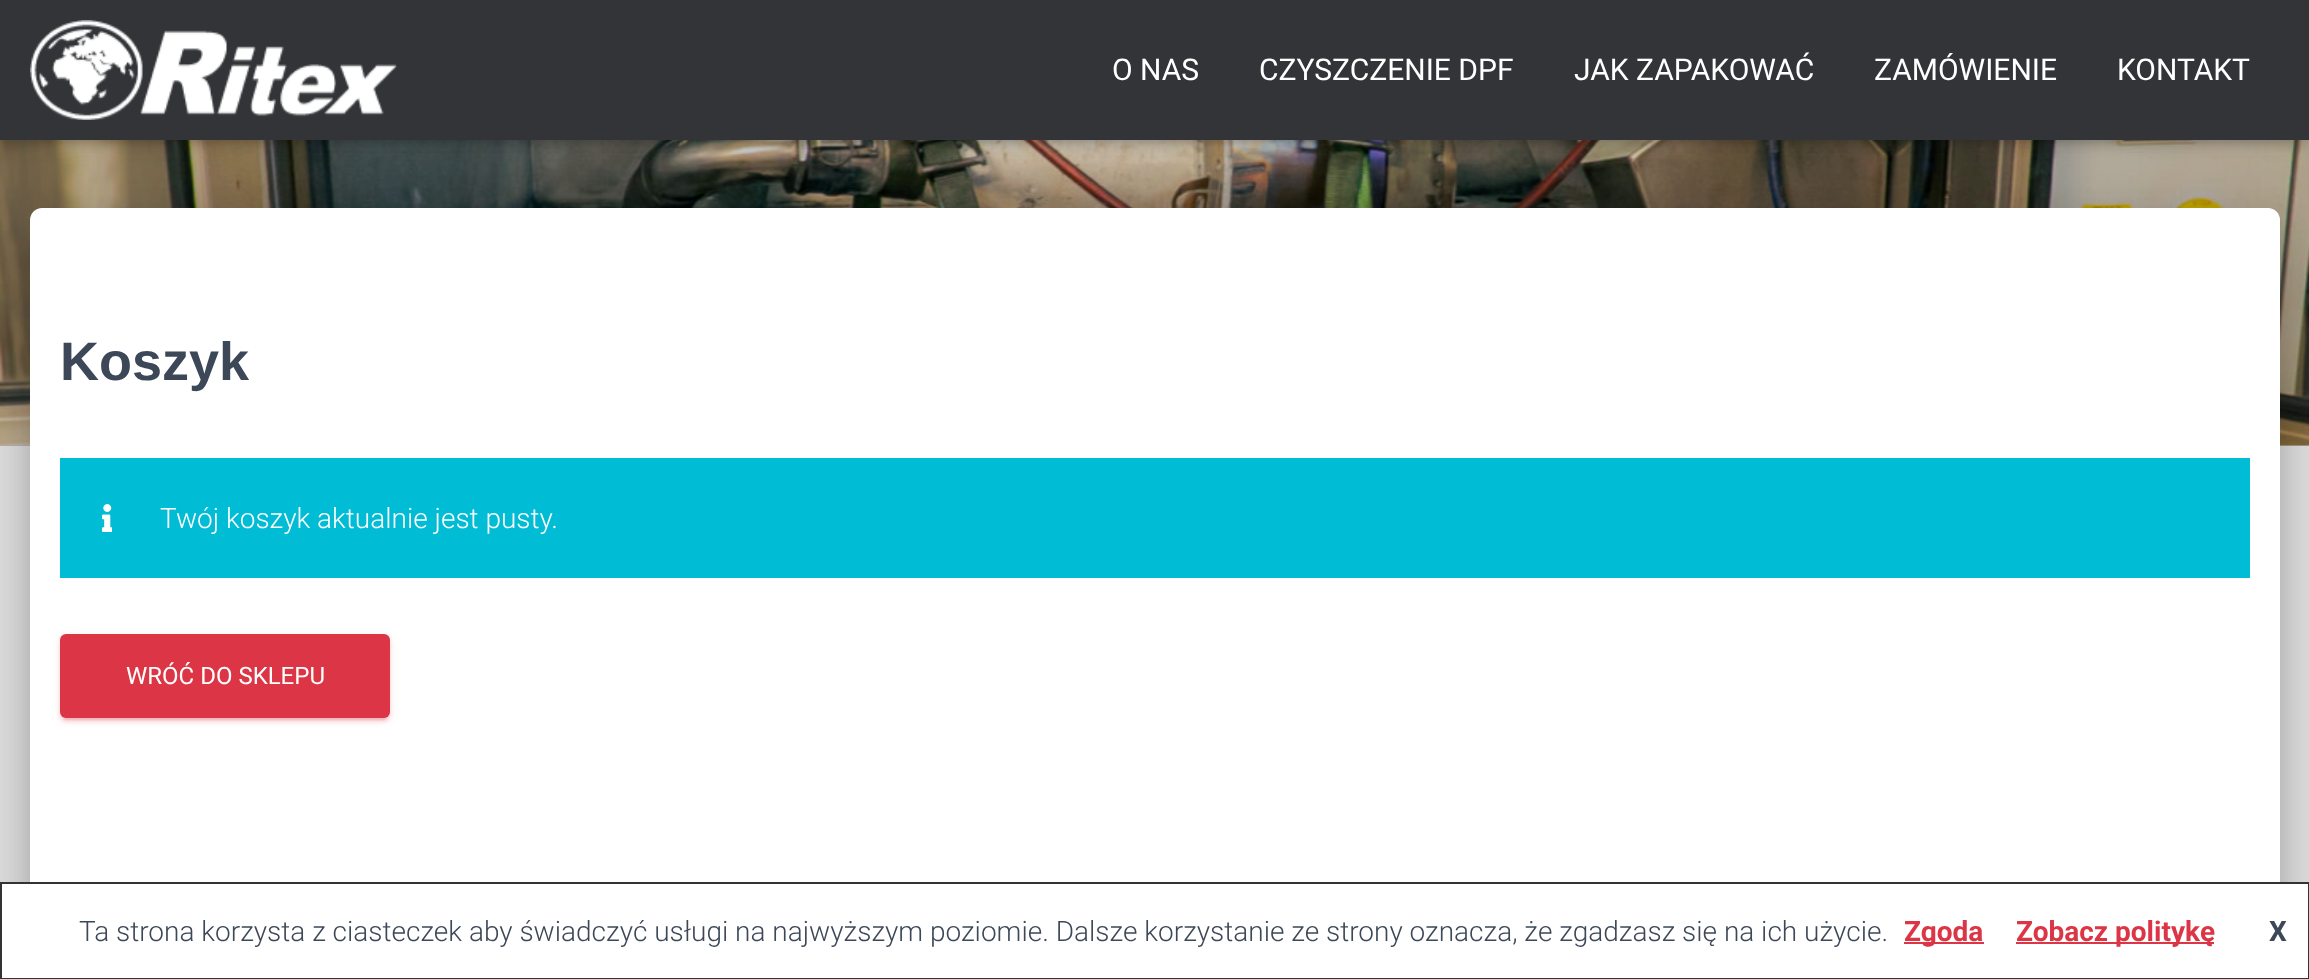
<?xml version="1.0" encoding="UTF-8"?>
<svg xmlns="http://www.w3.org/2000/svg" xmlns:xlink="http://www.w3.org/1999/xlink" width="2309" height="979">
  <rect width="100%" height="100%" fill="#e5e5e5" />
  <rect y="445" width="2309" height="1" fill="#b7b7b7" />
  <image x="0" y="140" width="2309" height="306" xlink:href="image2.png" />
  <rect x="4" y="12" width="2302" height="132" fill="#000000" fill-opacity="0.1" filter="blur(5px)" />
  <rect y="2" width="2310" height="140" fill="#000000" fill-opacity="0.12" filter="blur(10px)" />
  <rect x="12" y="14" width="2286" height="116" fill="#000000" fill-opacity="0.42" filter="blur(10px)" />
  <rect x="20" y="210" width="2270" height="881" rx="22" fill="#000000" fill-opacity="0.12" filter="blur(30px)" />
  <rect width="2309" height="140" fill="#323437" />
  <image x="30" y="20" width="367" height="100" xlink:href="image1.png" />
  <rect x="40" y="234" width="2230" height="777" rx="2" fill="#000000" fill-opacity="0.2" filter="blur(10px)" />
  <rect x="26" y="236" width="2258" height="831" rx="16" fill="#000000" fill-opacity="0.14" filter="blur(24px)" />
  <path d="M 42 208 h 2226 c 6.5 0 12 5.5 12 12 v 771 h -2250 v -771 c 0 -6.5 5.5 -12 12 -12 z" fill="#ffffff" />
  <rect x="60" y="458" width="2190" height="120" fill="#00bcd4" />
  <image x="102" y="504" width="10" height="28" xlink:href="image3.png" />
  <rect x="60" y="636" width="330" height="84" rx="6" fill="#dc3545" fill-opacity="0.12" filter="blur(5px)" />
  <rect x="64" y="644" width="322" height="76" rx="2" fill="#dc3545" fill-opacity="0.2" filter="blur(1px)" />
  <rect x="60" y="638" width="330" height="84" rx="6" fill="#dc3545" fill-opacity="0.14" filter="blur(2px)" />
  <rect x="60" y="634" width="330" height="84" rx="6" fill="#dc3545" />
  <rect x="1" y="883" width="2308" height="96" fill="#ffffff" stroke="#333333" stroke-width="2" />
  <rect x="1904" y="942" width="80" height="2" fill="#dc3545" />
  <rect x="2016" y="942" width="198" height="2" fill="#dc3545" />
  <text x="1112" y="80" style="font-family: Roboto; font-size: 30px; fill: #ffffff">O NAS</text>
  <text x="1259" y="80" style="font-family: Roboto; font-size: 30px; fill: #ffffff">CZYSZCZENIE DPF</text>
  <text x="1574" y="80" style="font-family: Roboto; font-size: 30px; fill: #ffffff">JAK ZAPAKOWAĆ</text>
  <text x="1874" y="80" style="font-family: Roboto; font-size: 30px; fill: #ffffff">ZAMÓWIENIE</text>
  <text x="2117" y="80" style="font-family: Roboto; font-size: 30px; fill: #ffffff">KONTAKT</text>
  <text x="60" y="380" style="font-family: Liberation Sans; font-size: 54px; font-weight: bold; fill: #3c4858">Koszyk</text>
  <text x="160" y="528" style="font-family: Roboto; font-size: 28px; font-weight: 300; fill: #ffffff">Twój koszyk aktualnie jest pusty.</text>
  <text x="126" y="684" style="font-family: Roboto; font-size: 24px; fill: #ffffff">WRÓĆ DO SKLEPU</text>
  <text x="79" y="941" style="font-family: Roboto; font-size: 28px; font-weight: 300; fill: #3c4858">Ta strona korzysta z ciasteczek aby świadczyć usługi na najwyższym poziomie. Dalsze korzystanie ze strony oznacza, że zgadzasz się na ich użycie.</text>
  <text x="1904" y="941" style="font-family: Roboto; font-size: 28px; font-weight: bold; fill: #dc3545">Zgoda</text>
  <text x="2016" y="941" style="font-family: Roboto; font-size: 28px; font-weight: bold; fill: #dc3545">Zobacz politykę</text>
  <text x="2269" y="941" style="font-family: Roboto; font-size: 28px; font-weight: bold; fill: #3c4858">X</text>
</svg>
